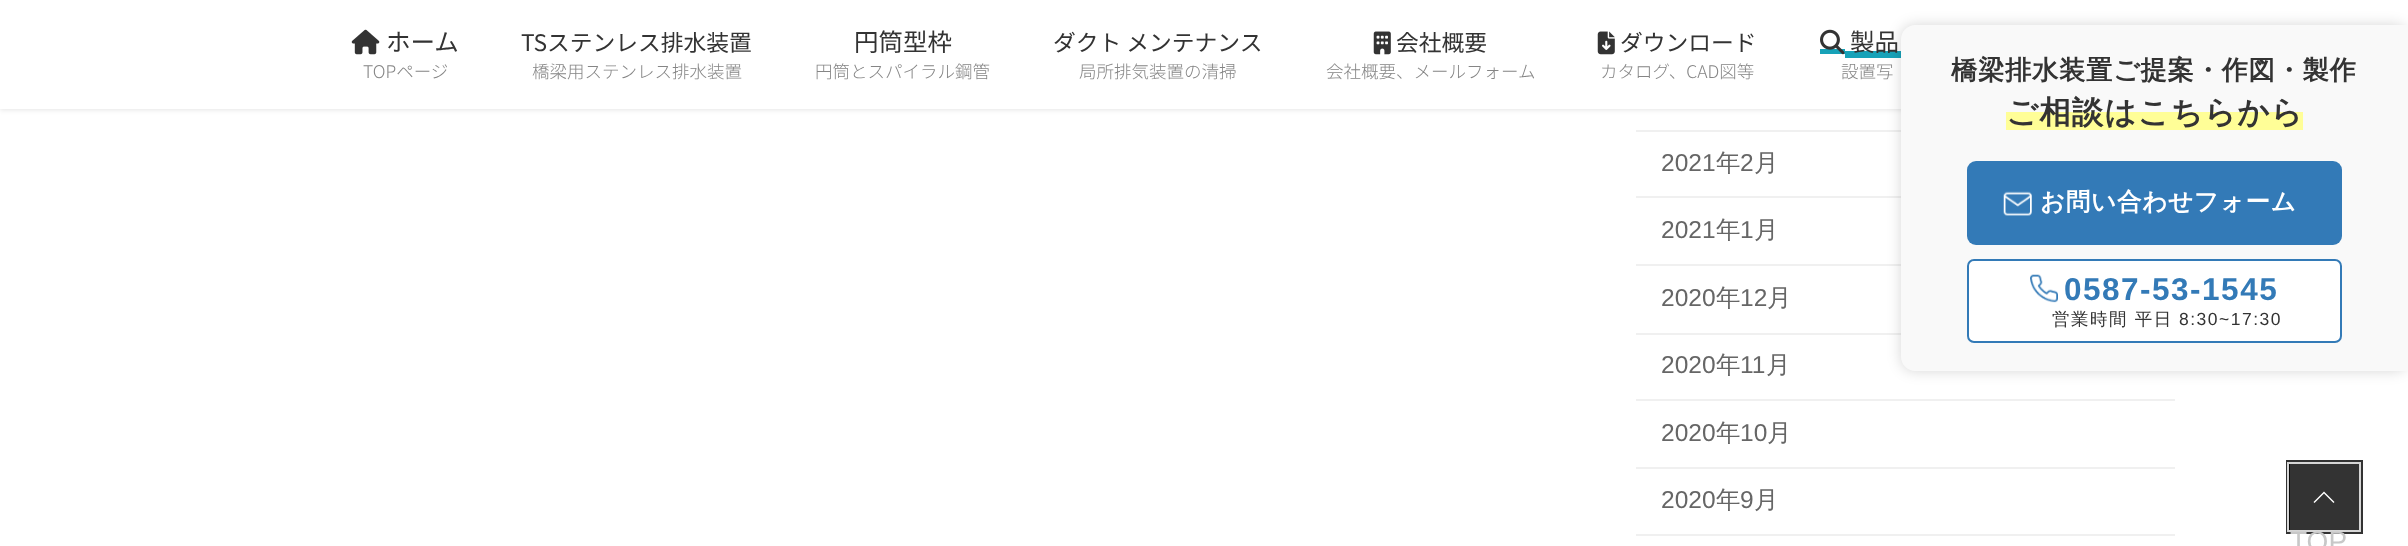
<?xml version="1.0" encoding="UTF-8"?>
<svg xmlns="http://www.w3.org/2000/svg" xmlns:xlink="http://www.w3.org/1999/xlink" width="2408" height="546">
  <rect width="100%" height="100%" fill="#ffffff" />
  <rect y="2" width="2408" height="108" fill="#000000" fill-opacity="0.1" filter="blur(2.5px)" />
  <rect width="2408" height="109" fill="#ffffff" />
  <image x="351" y="29" width="29" height="26" xlink:href="image1.png" />
  <image x="1373" y="31" width="18" height="24" xlink:href="image2.png" />
  <image x="1597" y="31" width="18" height="24" xlink:href="image3.png" />
  <rect x="1820" y="49" width="25" height="5" fill="#17a2b8" />
  <rect x="1845" y="51" width="56" height="7" fill="#17a2b8" />
  <image x="1820" y="29" width="25" height="26" xlink:href="image4.png" />
  <rect x="1636" y="130" width="265" height="2" fill="#f0f0f0" />
  <rect x="1636" y="196" width="265" height="2" fill="#f0f0f0" />
  <rect x="1636" y="264" width="265" height="2" fill="#f0f0f0" />
  <rect x="1636" y="333" width="265" height="2" fill="#f0f0f0" />
  <rect x="1901" y="25" width="507" height="346" rx="14" fill="#000000" fill-opacity="0.16" filter="blur(7px)" />
  <path d="M 1915 25 h 493 v 346 h -493 c -7.5 0 -14 -6.5 -14 -14 v -318 c 0 -7.5 6.5 -14 14 -14 z" fill="#f9f9f9" />
  <rect x="2006" y="112" width="297" height="18" fill="#fffe97" />
  <rect x="1967" y="161" width="375" height="84" rx="9" fill="#337ab7" />
  <image x="2003" y="191" width="29" height="25" xlink:href="image5.png" />
  <rect x="1968" y="260" width="373" height="82" rx="6" fill="#ffffff" stroke="#337ab7" stroke-width="2" />
  <image x="2030" y="274" width="28" height="29" xlink:href="image6.png" />
  <rect x="1636" y="399" width="539" height="2" fill="#f0f0f0" />
  <rect x="1636" y="467" width="539" height="2" fill="#f0f0f0" />
  <rect x="1636" y="534" width="539" height="2" fill="#f0f0f0" />
  <rect x="2288" y="462" width="73" height="70" fill="none" stroke="#333333" stroke-width="4" />
  <rect x="2288" y="463" width="72" height="68" fill="none" stroke="#d6d6d6" stroke-width="2" />
  <rect x="2289" y="464" width="70" height="66" fill="#000000" fill-opacity="0.8" />
  <path d="M 2334.5 502 l -1 1 l -9.5 -9.5 l -9.5 9.5 l -1 -1 l 10.5 -10.5 z" fill="#ffffff" />
  <text x="386" y="51" style="font-family: Noto Sans JP; font-size: 24.5px; fill: #333333">ホーム</text>
  <text x="363" y="78" style="font-family: Noto Sans JP; font-size: 17.5px; font-weight: 100; fill: #858585">TOPページ</text>
  <text x="521" y="51" style="font-family: Noto Sans JP; font-size: 22.75px; fill: #333333">TSステンレス排水装置</text>
  <text x="532" y="78" style="font-family: Noto Sans JP; font-size: 17.5px; font-weight: 100; fill: #858585">橋梁用ステンレス排水装置</text>
  <text x="854" y="51" style="font-family: Noto Sans JP; font-size: 24.5px; fill: #333333">円筒型枠</text>
  <text x="815" y="78" style="font-family: Noto Sans JP; font-size: 17.5px; font-weight: 100; fill: #858585">円筒とスパイラル鋼管</text>
  <text x="1053" y="51" style="font-family: Noto Sans JP; font-size: 22.75px; fill: #333333">ダクト メンテナンス</text>
  <text x="1079" y="78" style="font-family: Noto Sans JP; font-size: 17.5px; font-weight: 100; fill: #858585">局所排気装置の清掃</text>
  <text x="1396" y="51" style="font-family: Noto Sans JP; font-size: 22.75px; fill: #333333">会社概要</text>
  <text x="1326" y="78" style="font-family: Noto Sans JP; font-size: 17.5px; font-weight: 100; fill: #858585">会社概要、メールフォーム</text>
  <text x="1620" y="51" style="font-family: Noto Sans JP; font-size: 22.75px; fill: #333333">ダウンロード</text>
  <text x="1600" y="78" style="font-family: Noto Sans JP; font-size: 17.5px; font-weight: 100; fill: #858585">カタログ、CAD図等</text>
  <text x="1850" y="51" style="font-family: Noto Sans JP; font-size: 24.5px; fill: #333333">製品</text>
  <text x="1841" y="78" style="font-family: Noto Sans JP; font-size: 17.5px; font-weight: 100; fill: #858585">設置写</text>
  <text x="1951" y="79" style="font-family: WenQuanYi Zen Hei; font-size: 26.25px; font-weight: bold; letter-spacing: 0.75px; fill: #333333">橋梁排水装置ご提案・作図・製作</text>
  <text x="2006" y="123" style="font-family: WenQuanYi Zen Hei; font-size: 31.5px; font-weight: bold; letter-spacing: 1px; fill: #333333">ご相談はこちらから</text>
  <text x="2040" y="210" style="font-family: WenQuanYi Zen Hei; font-size: 24.5px; font-weight: bold; letter-spacing: 0.75px; fill: #ffffff">お問い合わせフォーム</text>
  <text x="2064" y="300" style="font-family: Liberation Sans; font-size: 31.5px; font-weight: bold; letter-spacing: 1.5px; fill: #337ab7">0587-53-1545</text>
  <text x="2052" y="325" style="font-family: WenQuanYi Zen Hei; font-size: 17.5px; font-weight: 500; letter-spacing: 1.5px; fill: #333333">営業時間 平日</text>
  <text x="2179" y="325" style="font-family: Liberation Sans; font-size: 17.5px; letter-spacing: 1.5px; fill: #333333">8:30~17:30</text>
  <text x="1661" y="171" style="font-family: Liberation Sans; font-size: 24.5px; fill: #666666">2021</text>
  <text x="1716" y="171" style="font-family: WenQuanYi Zen Hei; font-size: 24.5px; font-weight: 500; fill: #666666">年</text>
  <text x="1740" y="171" style="font-family: Liberation Sans; font-size: 24.5px; fill: #666666">2</text>
  <text x="1754" y="171" style="font-family: WenQuanYi Zen Hei; font-size: 24.5px; font-weight: 500; fill: #666666">月</text>
  <text x="1661" y="238" style="font-family: Liberation Sans; font-size: 24.5px; fill: #666666">2021</text>
  <text x="1716" y="238" style="font-family: WenQuanYi Zen Hei; font-size: 24.5px; font-weight: 500; fill: #666666">年</text>
  <text x="1740" y="238" style="font-family: Liberation Sans; font-size: 24.5px; fill: #666666">1</text>
  <text x="1754" y="238" style="font-family: WenQuanYi Zen Hei; font-size: 24.5px; font-weight: 500; fill: #666666">月</text>
  <text x="1661" y="306" style="font-family: Liberation Sans; font-size: 24.5px; fill: #666666">2020</text>
  <text x="1716" y="306" style="font-family: WenQuanYi Zen Hei; font-size: 24.5px; font-weight: 500; fill: #666666">年</text>
  <text x="1740" y="306" style="font-family: Liberation Sans; font-size: 24.5px; fill: #666666">12</text>
  <text x="1767" y="306" style="font-family: WenQuanYi Zen Hei; font-size: 24.5px; font-weight: 500; fill: #666666">月</text>
  <text x="1661" y="373" style="font-family: Liberation Sans; font-size: 24.5px; fill: #666666">2020</text>
  <text x="1716" y="373" style="font-family: WenQuanYi Zen Hei; font-size: 24.5px; font-weight: 500; fill: #666666">年</text>
  <text x="1740" y="373" style="font-family: Liberation Sans; font-size: 24.5px; fill: #666666">11</text>
  <text x="1766" y="373" style="font-family: WenQuanYi Zen Hei; font-size: 24.5px; font-weight: 500; fill: #666666">月</text>
  <text x="1661" y="441" style="font-family: Liberation Sans; font-size: 24.5px; fill: #666666">2020</text>
  <text x="1716" y="441" style="font-family: WenQuanYi Zen Hei; font-size: 24.5px; font-weight: 500; fill: #666666">年</text>
  <text x="1740" y="441" style="font-family: Liberation Sans; font-size: 24.5px; fill: #666666">10</text>
  <text x="1767" y="441" style="font-family: WenQuanYi Zen Hei; font-size: 24.5px; font-weight: 500; fill: #666666">月</text>
  <text x="1661" y="508" style="font-family: Liberation Sans; font-size: 24.5px; fill: #666666">2020</text>
  <text x="1716" y="508" style="font-family: WenQuanYi Zen Hei; font-size: 24.5px; font-weight: 500; fill: #666666">年</text>
  <text x="1740" y="508" style="font-family: Liberation Sans; font-size: 24.5px; fill: #666666">9</text>
  <text x="1754" y="508" style="font-family: WenQuanYi Zen Hei; font-size: 24.5px; font-weight: 500; fill: #666666">月</text>
  <text x="2290" y="551" style="font-family: Liberation Sans; font-size: 28px; fill: #c8c8c8">TOP</text>
</svg>
